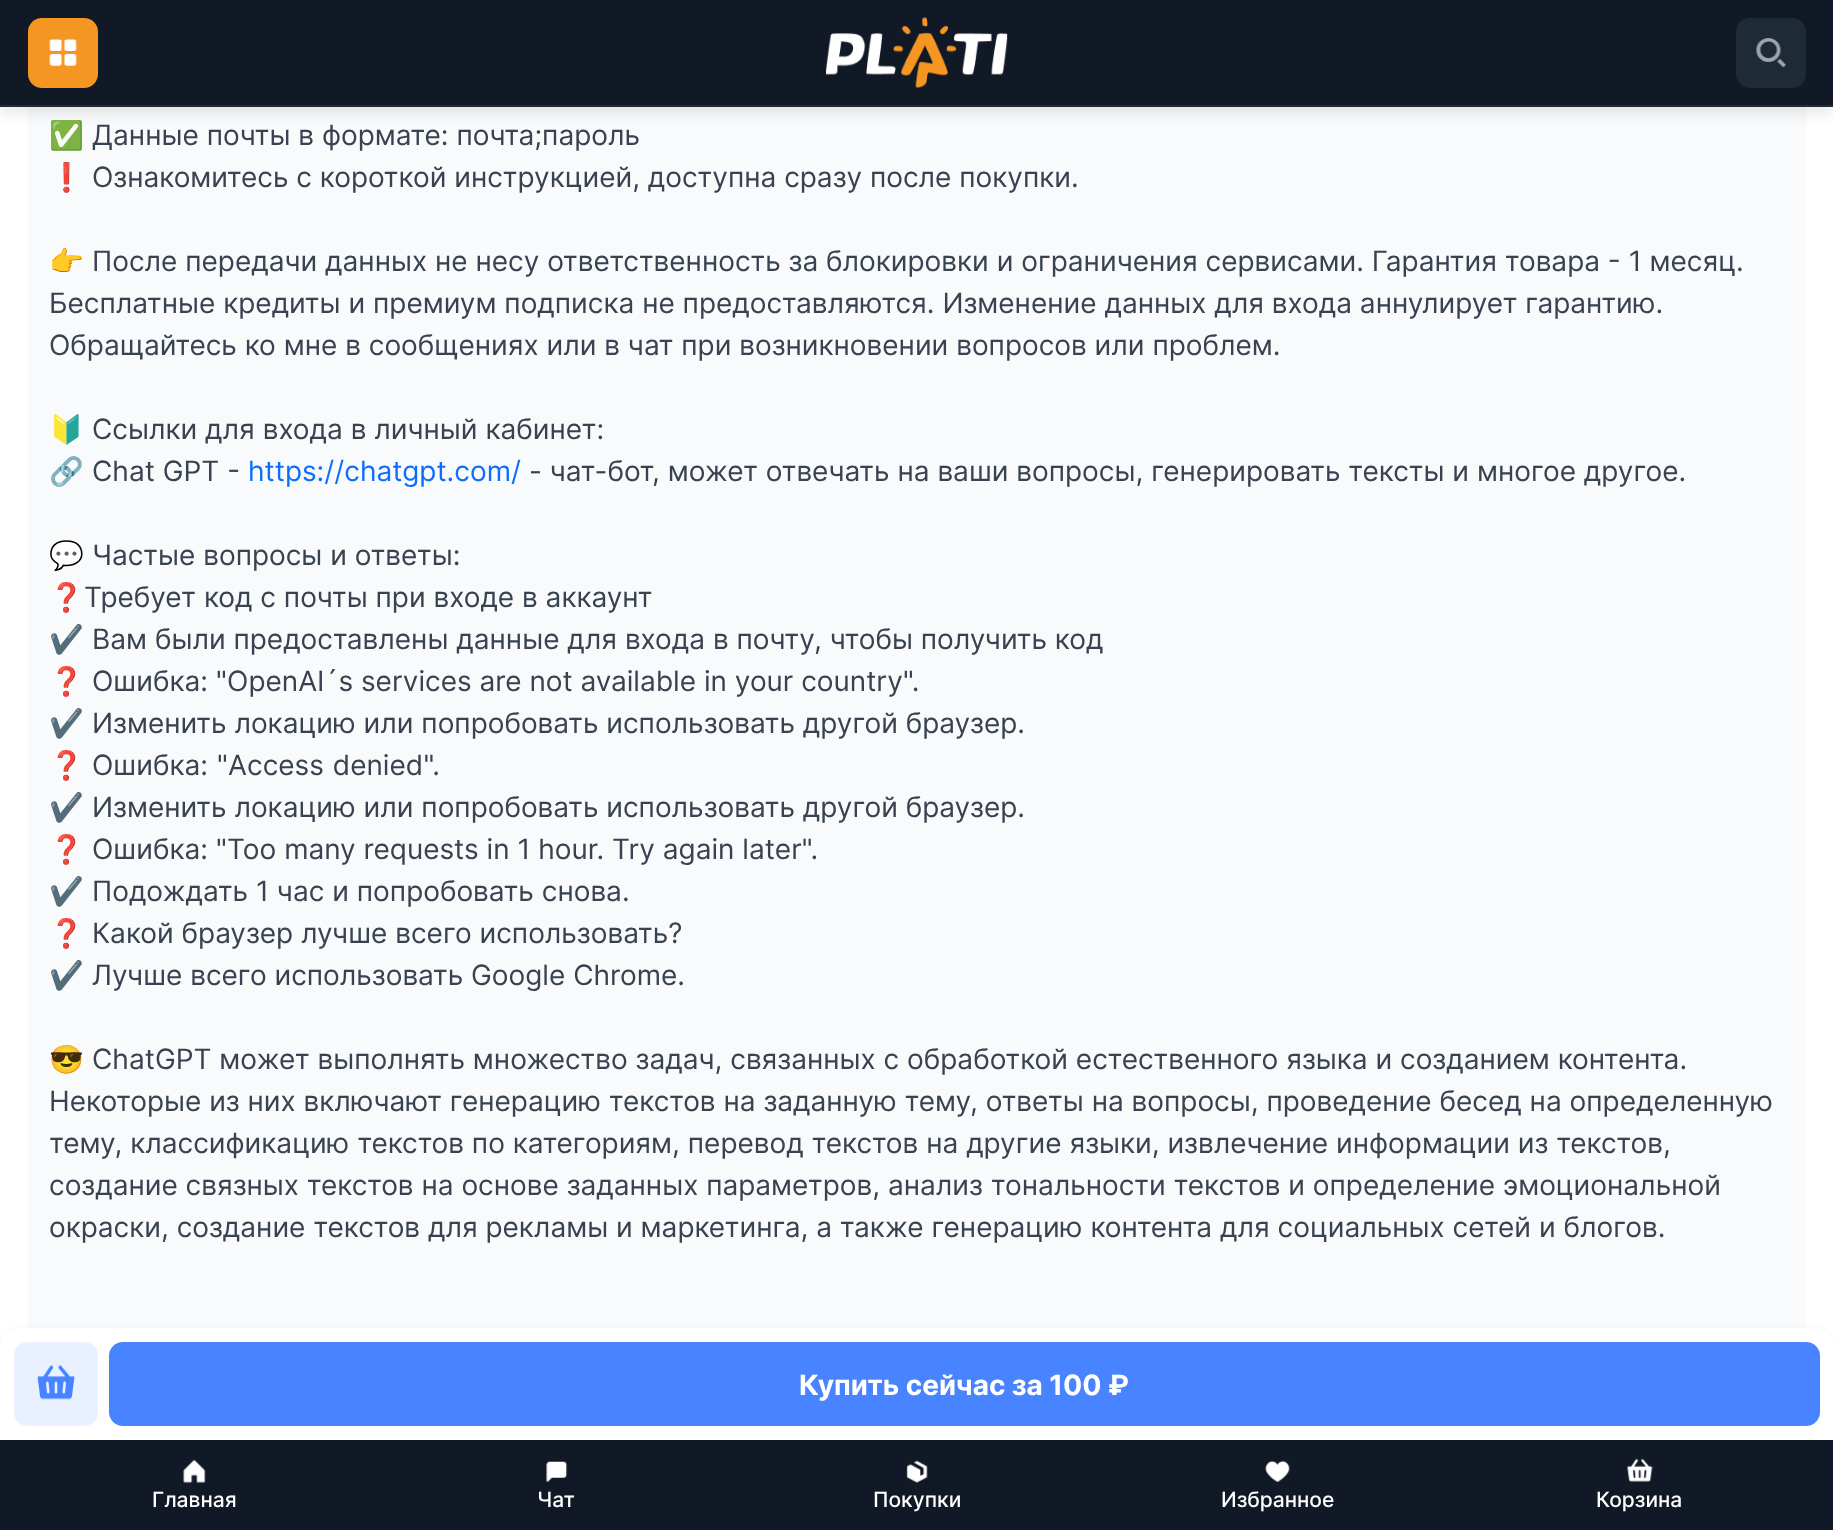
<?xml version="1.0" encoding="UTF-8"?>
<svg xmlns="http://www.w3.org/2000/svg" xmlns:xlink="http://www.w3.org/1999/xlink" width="1833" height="1530">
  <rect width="100%" height="100%" fill="#ffffff" />
  <rect x="28" y="107" width="1778" height="1221" fill="#f9fafb" />
  <rect y="1335" width="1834" height="112" rx="21" fill="#111927" fill-opacity="0.1" filter="blur(7px)" />
  <path d="M 21 1328 h 1792 c 11.5 0 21 9.5 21 21 v 91 h -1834 v -91 c 0 -11.5 9.5 -21 21 -21 z" fill="#ffffff" />
  <rect x="14" y="1342" width="84" height="84" rx="14" fill="#e9f0ff" />
  <image x="37" y="1365" width="38" height="35" xlink:href="image1.png" />
  <rect x="109" y="1342" width="1711" height="84" rx="14" fill="#4884ff" />
  <rect y="7" width="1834" height="107" fill="#111927" fill-opacity="0.1" filter="blur(7px)" />
  <rect width="1833" height="105" fill="#111927" />
  <rect y="105" width="1833" height="2" fill="#1f2a37" />
  <rect x="28" y="18" width="70" height="70" rx="14" fill="#f59622" />
  <image x="49" y="39" width="28" height="27" xlink:href="image2.png" />
  <image x="826" y="17" width="182" height="71" xlink:href="image3.png" />
  <rect x="1736" y="18" width="70" height="70" rx="14" fill="#1f2a37" />
  <image x="1755" y="38" width="31" height="30" xlink:href="image4.png" />
  <rect y="1440" width="1833" height="90" fill="#111927" />
  <image x="183" y="1459" width="23" height="24" xlink:href="image5.png" />
  <image x="546" y="1461" width="22" height="21" xlink:href="image6.png" />
  <image x="906" y="1460" width="22" height="23" xlink:href="image7.png" />
  <image x="1265" y="1460" width="25" height="22" xlink:href="image8.png" />
  <image x="1627" y="1458" width="26" height="24" xlink:href="image9.png" />
  <text x="49" y="145" style="font-family: Noto Color Emoji; font-size: 28px; fill: #384250">✅</text>
  <text x="92" y="145" style="font-family: Inter; font-size: 28px; fill: #384250">Данные почты в формате: почта;пароль</text>
  <text x="49" y="187" style="font-family: Noto Color Emoji; font-size: 28px; fill: #384250">❗️</text>
  <text x="92" y="187" style="font-family: Inter; font-size: 28px; fill: #384250">Ознакомитесь с короткой инструкцией, доступна сразу после покупки.</text>
  <text x="49" y="271" style="font-family: Noto Color Emoji; font-size: 28px; fill: #384250">👉</text>
  <text x="92" y="271" style="font-family: Inter; font-size: 28px; fill: #384250">После передачи данных не несу ответственность за блокировки и ограничения сервисами. Гарантия товара - 1 месяц.</text>
  <text x="49" y="313" style="font-family: Inter; font-size: 28px; fill: #384250">Бесплатные кредиты и премиум подписка не предоставляются. Изменение данных для входа аннулирует гарантию.</text>
  <text x="49" y="355" style="font-family: Inter; font-size: 28px; fill: #384250">Обращайтесь ко мне в сообщениях или в чат при возникновении вопросов или проблем.</text>
  <text x="49" y="439" style="font-family: Noto Color Emoji; font-size: 28px; fill: #384250">🔰</text>
  <text x="92" y="439" style="font-family: Inter; font-size: 28px; fill: #384250">Ссылки для входа в личный кабинет:</text>
  <text x="49" y="481" style="font-family: Noto Color Emoji; font-size: 28px; fill: #384250">🔗</text>
  <text x="92" y="481" style="font-family: Inter; font-size: 28px; fill: #384250">Chat GPT -</text>
  <text x="248" y="481" style="font-family: Inter; font-size: 28px; fill: #0d6efd">https://chatgpt.com/</text>
  <text x="529" y="481" style="font-family: Inter; font-size: 28px; fill: #384250">- чат-бот, может отвечать на ваши вопросы, генерировать тексты и многое другое.</text>
  <text x="49" y="565" style="font-family: Noto Color Emoji; font-size: 28px; fill: #384250">💬</text>
  <text x="92" y="565" style="font-family: Inter; font-size: 28px; fill: #384250">Частые вопросы и ответы:</text>
  <text x="49" y="607" style="font-family: Noto Color Emoji; font-size: 28px; fill: #384250">❓</text>
  <text x="84" y="607" style="font-family: Inter; font-size: 28px; fill: #384250">Требует код с почты при входе в аккаунт</text>
  <text x="49" y="649" style="font-family: Noto Color Emoji; font-size: 28px; fill: #384250">✔️</text>
  <text x="92" y="649" style="font-family: Inter; font-size: 28px; fill: #384250">Вам были предоставлены данные для входа в почту, чтобы получить код</text>
  <text x="49" y="691" style="font-family: Noto Color Emoji; font-size: 28px; fill: #384250">❓</text>
  <text x="92" y="691" style="font-family: Inter; font-size: 28px; fill: #384250">Ошибка: "OpenAI´s services are not available in your country".</text>
  <text x="49" y="733" style="font-family: Noto Color Emoji; font-size: 28px; fill: #384250">✔️</text>
  <text x="92" y="733" style="font-family: Inter; font-size: 28px; fill: #384250">Изменить локацию или попробовать использовать другой браузер.</text>
  <text x="49" y="775" style="font-family: Noto Color Emoji; font-size: 28px; fill: #384250">❓</text>
  <text x="92" y="775" word-spacing="1" style="font-family: Inter; font-size: 28px; fill: #384250">Ошибка: "Access denied".</text>
  <text x="49" y="817" style="font-family: Noto Color Emoji; font-size: 28px; fill: #384250">✔️</text>
  <text x="92" y="817" style="font-family: Inter; font-size: 28px; fill: #384250">Изменить локацию или попробовать использовать другой браузер.</text>
  <text x="49" y="859" style="font-family: Noto Color Emoji; font-size: 28px; fill: #384250">❓</text>
  <text x="92" y="859" style="font-family: Inter; font-size: 28px; fill: #384250">Ошибка: "Too many requests in 1 hour. Try again later".</text>
  <text x="49" y="901" style="font-family: Noto Color Emoji; font-size: 28px; fill: #384250">✔️</text>
  <text x="92" y="901" style="font-family: Inter; font-size: 28px; fill: #384250">Подождать 1 час и попробовать снова.</text>
  <text x="49" y="943" style="font-family: Noto Color Emoji; font-size: 28px; fill: #384250">❓</text>
  <text x="92" y="943" style="font-family: Inter; font-size: 28px; fill: #384250">Какой браузер лучше всего использовать?</text>
  <text x="49" y="985" style="font-family: Noto Color Emoji; font-size: 28px; fill: #384250">✔️</text>
  <text x="92" y="985" style="font-family: Inter; font-size: 28px; fill: #384250">Лучше всего использовать Google Chrome.</text>
  <text x="49" y="1069" style="font-family: Noto Color Emoji; font-size: 28px; fill: #384250">😎</text>
  <text x="92" y="1069" style="font-family: Inter; font-size: 28px; fill: #384250">ChatGPT может выполнять множество задач, связанных с обработкой естественного языка и созданием контента.</text>
  <text x="49" y="1111" style="font-family: Inter; font-size: 28px; fill: #384250">Некоторые из них включают генерацию текстов на заданную тему, ответы на вопросы, проведение бесед на определенную</text>
  <text x="49" y="1153" style="font-family: Inter; font-size: 28px; fill: #384250">тему, классификацию текстов по категориям, перевод текстов на другие языки, извлечение информации из текстов,</text>
  <text x="49" y="1195" style="font-family: Inter; font-size: 28px; fill: #384250">создание связных текстов на основе заданных параметров, анализ тональности текстов и определение эмоциональной</text>
  <text x="49" y="1237" style="font-family: Inter; font-size: 28px; fill: #384250">окраски, создание текстов для рекламы и маркетинга, а также генерацию контента для социальных сетей и блогов.</text>
  <text x="799" y="1395" style="font-family: Inter; font-size: 28px; font-weight: bold; fill: #ffffff">Купить сейчас за 100 ₽</text>
  <text x="152" y="1507" style="font-family: Inter; font-size: 21px; font-weight: 500; fill: #ffffff">Главная</text>
  <text x="537" y="1507" style="font-family: Inter; font-size: 21px; font-weight: 500; fill: #ffffff">Чат</text>
  <text x="873" y="1507" style="font-family: Inter; font-size: 21px; font-weight: 500; fill: #ffffff">Покупки</text>
  <text x="1221" y="1507" style="font-family: Inter; font-size: 21px; font-weight: 500; fill: #ffffff">Избранное</text>
  <text x="1596" y="1507" style="font-family: Inter; font-size: 21px; font-weight: 500; fill: #ffffff">Корзина</text>
</svg>
